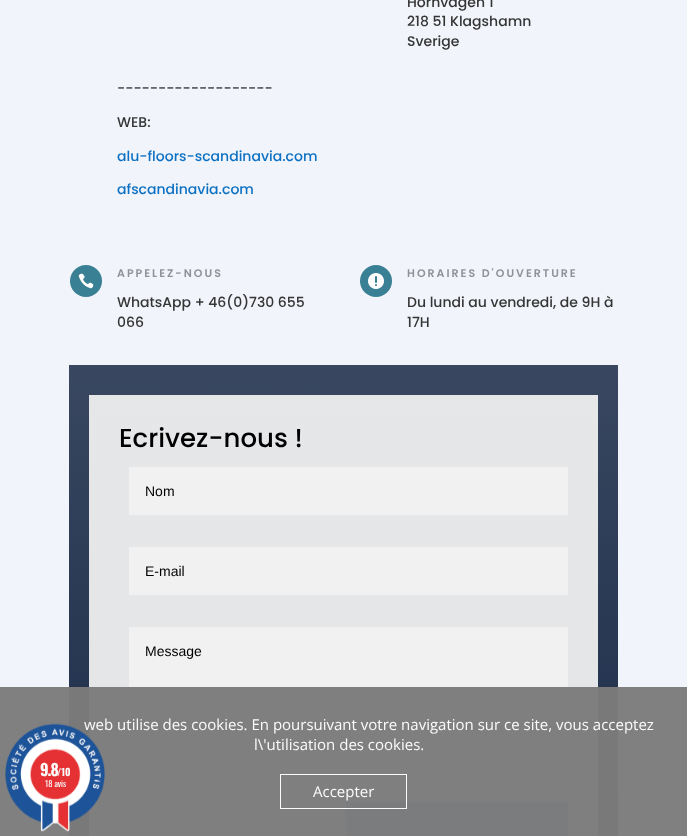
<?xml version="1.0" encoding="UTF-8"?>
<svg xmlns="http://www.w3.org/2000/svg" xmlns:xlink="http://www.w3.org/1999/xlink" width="687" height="836">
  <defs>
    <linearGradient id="g1" gradientUnits="userSpaceOnUse" x1="343" y1="365" x2="344" y2="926"><stop offset="0" stop-color="#394760" /><stop offset="1" stop-color="#182845" /></linearGradient>
    <linearGradient id="g2" gradientUnits="userSpaceOnUse" x1="343" y1="365" x2="344" y2="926"><stop offset="0" stop-color="#7a7a7b" /><stop offset="1" stop-color="#79797a" /></linearGradient>
    <linearGradient id="g3" gradientUnits="userSpaceOnUse" x1="343" y1="365" x2="344" y2="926"><stop offset="0" stop-color="#e6e7e8" /><stop offset="1" stop-color="#e4e5e7" /></linearGradient>
    <linearGradient id="g4" gradientUnits="userSpaceOnUse" x1="343" y1="365" x2="344" y2="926"><stop offset="0" stop-color="#7f7f7f" /><stop offset="1" stop-color="#7f7f7f" /></linearGradient>
  </defs>
  <rect width="100%" height="100%" fill="#f2f4fb" />
  <rect y="687" width="687" height="149" fill="#808080" />
  <circle cx="86" cy="281" r="16" fill="#3a8094" />
  <image x="78" y="273" width="16" height="16" xlink:href="image1.png" />
  <circle cx="376" cy="281" r="16" fill="#3a8094" />
  <image x="368" y="273" width="16" height="16" xlink:href="image2.png" />
  <rect x="69" y="365" width="549" height="322" fill="url(#g1)" />
  <rect x="69" y="687" width="549" height="149" fill="url(#g2)" />
  <rect x="89" y="395" width="509" height="292" fill="url(#g3)" />
  <rect x="89" y="687" width="509" height="149" fill="url(#g4)" />
  <rect x="129" y="467" width="439" height="48" fill="#f1f1f1" />
  <rect x="129" y="547" width="439" height="48" fill="#f1f1f1" />
  <rect x="129" y="627" width="439" height="60" fill="#f1f1f1" />
  <rect x="346" y="802" width="222" height="34" fill="#7a7c7d" />
  <rect x="280.5" y="774.5" width="126" height="34" fill="none" stroke="#ffffff" stroke-opacity="0.97" />
  <text x="407" y="7" style="font-family: Poppins; font-size: 14px; font-weight: 500; fill: #353535">Hörnvägen 1</text>
  <text x="407" y="26" style="font-family: Poppins; font-size: 14px; font-weight: 500; fill: #353535">218 51 Klagshamn</text>
  <text x="407" y="46" style="font-family: Poppins; font-size: 14px; font-weight: 500; fill: #353535">Sverige</text>
  <text x="117" y="93" style="font-family: Poppins; font-size: 14px; font-weight: 500; fill: #353535">-------------------</text>
  <text x="117" y="127" style="font-family: Poppins; font-size: 14px; font-weight: 500; fill: #353535">WEB:</text>
  <text x="117" y="161" style="font-family: Poppins; font-size: 14px; font-weight: 500; fill: #0c71c3">alu-floors-scandinavia.com</text>
  <text x="117" y="194" style="font-family: Poppins; font-size: 14px; font-weight: 500; fill: #0c71c3">afscandinavia.com</text>
  <text x="117" y="277" style="font-family: Poppins; font-size: 11px; font-weight: 600; letter-spacing: 2px; fill: #919297">APPELEZ-NOUS</text>
  <text x="117" y="307" style="font-family: Poppins; font-size: 14px; font-weight: 500; fill: #353535">WhatsApp + 46(0)730 655</text>
  <text x="117" y="327" style="font-family: Poppins; font-size: 14px; font-weight: 500; fill: #353535">066</text>
  <text x="407" y="277" style="font-family: Poppins; font-size: 11px; font-weight: 600; letter-spacing: 2px; fill: #919297">HORAIRES D'OUVERTURE</text>
  <text x="407" y="307" style="font-family: Poppins; font-size: 14px; font-weight: 500; fill: #353535">Du lundi au vendredi, de 9H à</text>
  <text x="407" y="327" style="font-family: Poppins; font-size: 14px; font-weight: 500; fill: #353535">17H</text>
  <text x="119" y="447" style="font-family: Poppins; font-size: 26px; font-weight: 500; fill: #000000">Ecrivez-nous !</text>
  <text x="145" y="496" style="font-family: Liberation Sans; font-size: 14px; fill: #000000">Nom</text>
  <text x="145" y="576" style="font-family: Liberation Sans; font-size: 14px; fill: #000000">E-mail</text>
  <text x="145" y="656" style="font-family: Liberation Sans; font-size: 14px; fill: #000000">Message</text>
  <text x="84" y="730" style="font-family: Open Sans; font-size: 15px; fill: #fbfbfb">web utilise des cookies. En poursuivant votre navigation sur ce site, vous acceptez</text>
  <image x="5" y="723" width="100" height="109" xlink:href="image3.png" />
  <text x="45" y="787" style="font-family: Oswald; font-size: 8.5px; fill: #fbfbfb">18 avis</text>
  <text x="40" y="776" style="font-family: Oswald; font-size: 16px; font-weight: bold; letter-spacing: -1px; fill: #fbfbfb">9.8</text>
  <text x="57" y="776" style="font-family: Oswald; font-size: 10px; font-weight: bold; fill: #fbfbfb">/10</text>
  <text x="254" y="750" style="font-family: Open Sans; font-size: 15px; fill: #fbfbfb">l\'utilisation des cookies.</text>
  <text x="313" y="797" style="font-family: Open Sans; font-size: 15px; fill: #fbfbfb">Accepter</text>
</svg>
